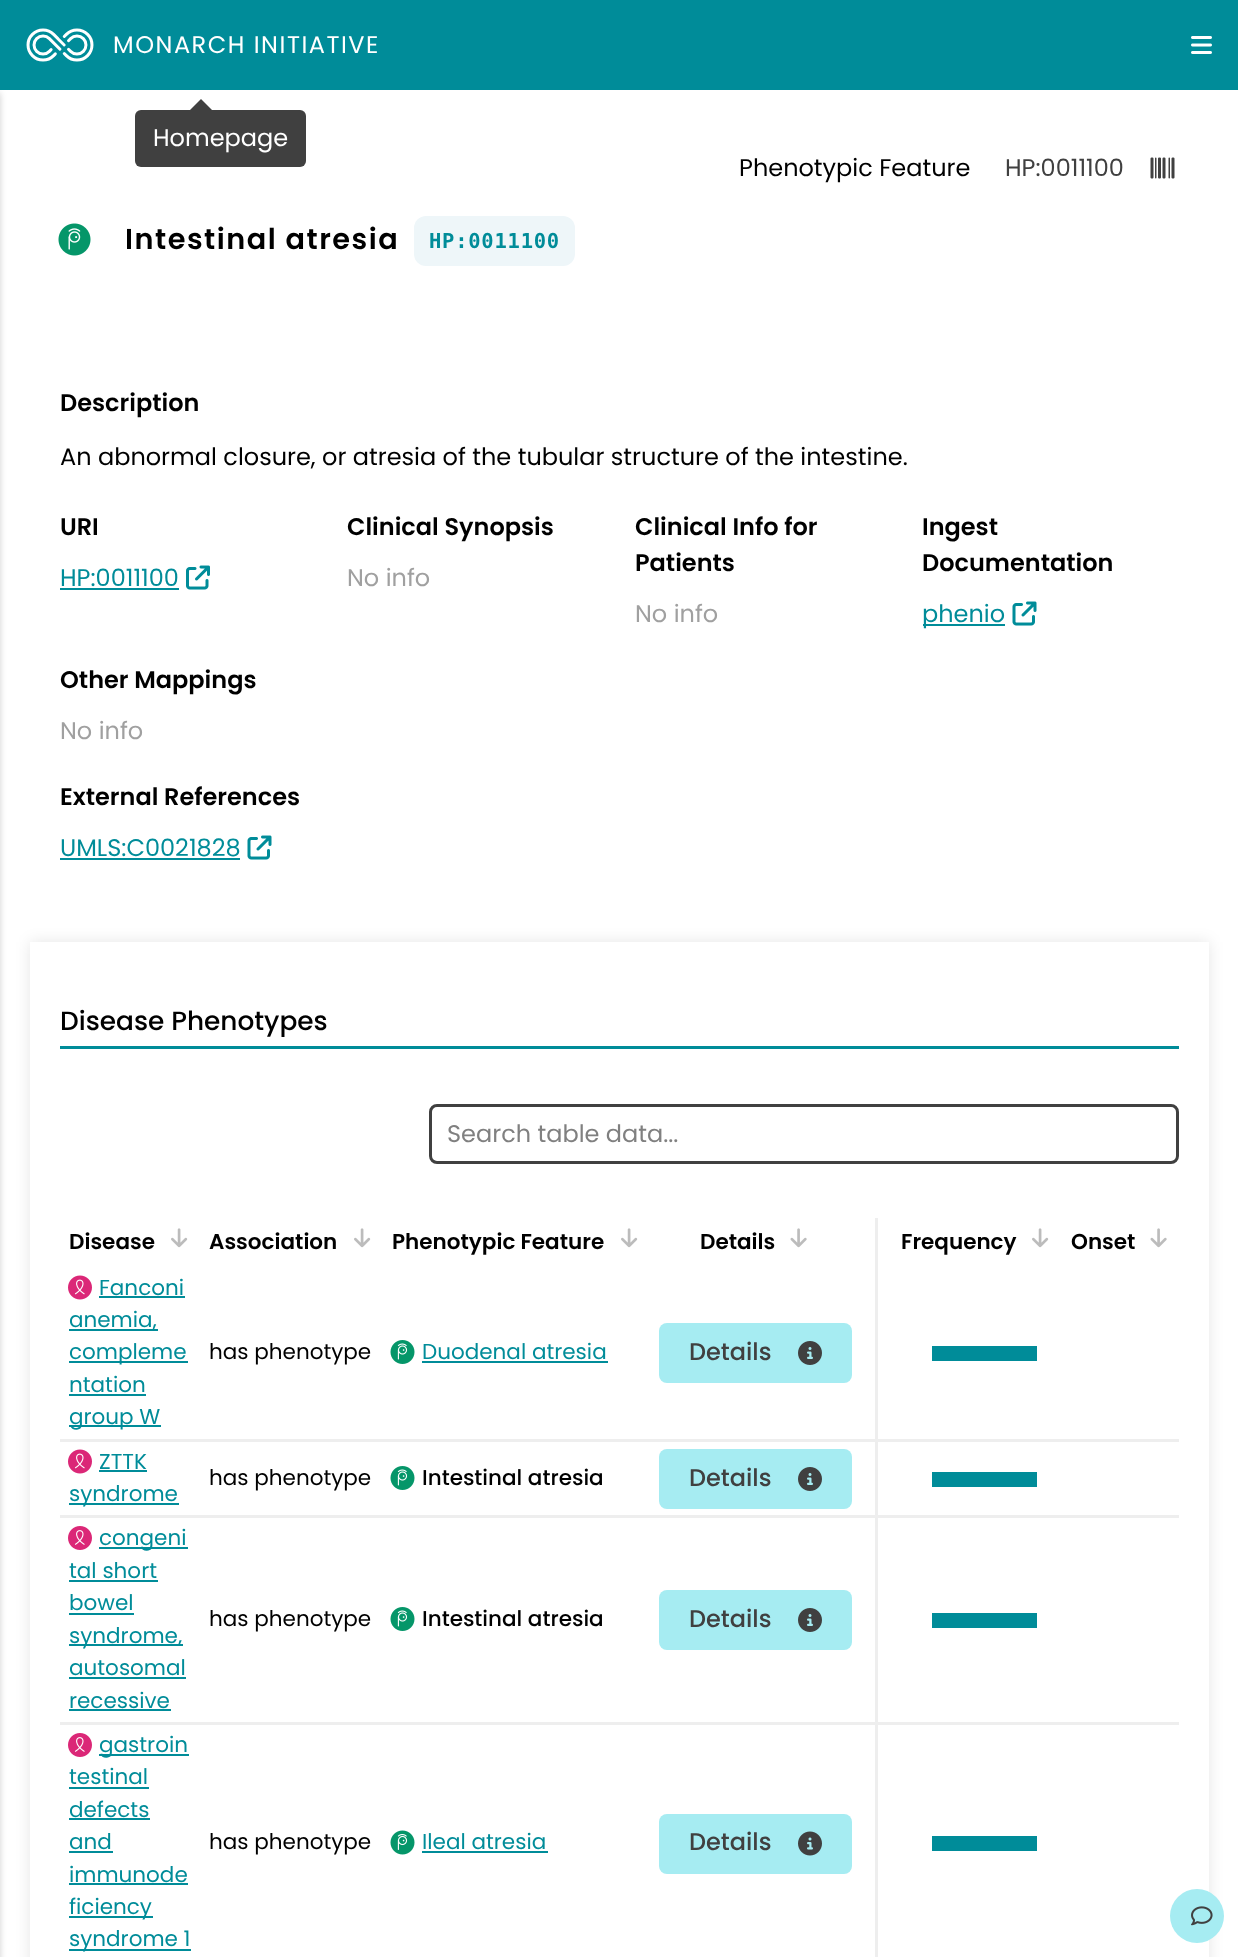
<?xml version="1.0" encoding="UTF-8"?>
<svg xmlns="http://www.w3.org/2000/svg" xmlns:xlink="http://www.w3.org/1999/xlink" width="1238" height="1957">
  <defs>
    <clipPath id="clip1"><path d="M 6 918 h 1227 v 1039 h -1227 z m 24 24 h 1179 v 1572 h -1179 z" clip-rule="evenodd" /></clipPath>
  </defs>
  <rect width="100%" height="100%" fill="#ffffff" />
  <rect x="-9" y="93" width="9" height="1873" fill="#000000" fill-opacity="0.19" filter="blur(3px)" />
  <rect width="1238" height="90" fill="#008c99" />
  <image x="26" y="28" width="68" height="34" xlink:href="image1.png" />
  <image x="1191" y="36" width="21" height="18" xlink:href="image2.png" />
  <image x="1150" y="157" width="25" height="22" xlink:href="image3.png" />
  <image x="58" y="223" width="33" height="33" xlink:href="image4.png" />
  <rect x="414" y="216" width="161" height="50" rx="12" fill="#eef6f9" />
  <rect x="60" y="588" width="119" height="2" fill="#008c99" />
  <image x="186" y="565" width="24" height="25" xlink:href="image5.png" />
  <rect x="923" y="624" width="82" height="2" fill="#008c99" />
  <image x="1012" y="601" width="25" height="25" xlink:href="image6.png" />
  <rect x="60" y="858" width="180" height="2" fill="#008c99" />
  <image x="247" y="835" width="25" height="25" xlink:href="image6.png" />
  <g clip-path="url(#clip1)">
    <rect x="30" y="942" width="1179" height="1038" fill="#000000" fill-opacity="0.1" filter="blur(7.5px)" />
  </g>
  <rect x="60" y="1046" width="1119" height="3" fill="#008c99" />
  <rect x="430.5" y="1105.5" width="747" height="57" rx="6.5" fill="none" stroke="#404040" stroke-width="3" />
  <image x="171" y="1228" width="17" height="20" xlink:href="image7.png" />
  <image x="354" y="1228" width="17" height="20" xlink:href="image7.png" />
  <image x="621" y="1228" width="17" height="20" xlink:href="image7.png" />
  <image x="790" y="1228" width="17" height="20" xlink:href="image8.png" />
  <rect x="875" y="1218" width="3" height="221" fill="#eeeeee" />
  <image x="1032" y="1228" width="17" height="20" xlink:href="image7.png" />
  <image x="1150" y="1228" width="17" height="20" xlink:href="image8.png" />
  <image x="68" y="1275" width="24" height="25" xlink:href="image9.png" />
  <rect x="99" y="1296" width="86" height="2" fill="#008c99" />
  <rect x="69" y="1329" width="89" height="2" fill="#008c99" />
  <rect x="69" y="1361" width="119" height="2" fill="#008c99" />
  <rect x="69" y="1394" width="77" height="2" fill="#008c99" />
  <rect x="69" y="1425" width="92" height="2" fill="#008c99" />
  <image x="390" y="1340" width="25" height="24" xlink:href="image10.png" />
  <rect x="422" y="1361" width="186" height="2" fill="#008c99" />
  <rect x="659" y="1323" width="193" height="60" rx="8" fill="#a6ecf2" />
  <image x="798" y="1341" width="24" height="24" xlink:href="image11.png" />
  <rect x="932" y="1346" width="105" height="15" fill="#008c99" />
  <rect x="60" y="1439" width="1119" height="3" fill="#eeeeee" />
  <image x="68" y="1449" width="24" height="25" xlink:href="image9.png" />
  <rect x="99" y="1470" width="48" height="2" fill="#008c99" />
  <rect x="69" y="1503" width="110" height="2" fill="#008c99" />
  <image x="390" y="1466" width="25" height="24" xlink:href="image10.png" />
  <rect x="659" y="1449" width="193" height="60" rx="8" fill="#a6ecf2" />
  <image x="798" y="1467" width="24" height="24" xlink:href="image11.png" />
  <rect x="875" y="1442" width="3" height="73" fill="#eeeeee" />
  <rect x="932" y="1472" width="105" height="15" fill="#008c99" />
  <rect x="60" y="1515" width="1119" height="3" fill="#eeeeee" />
  <image x="68" y="1526" width="24" height="24" xlink:href="image12.png" />
  <rect x="99" y="1547" width="89" height="2" fill="#008c99" />
  <rect x="69" y="1580" width="89" height="2" fill="#008c99" />
  <rect x="69" y="1613" width="65" height="2" fill="#008c99" />
  <rect x="69" y="1644" width="114" height="2" fill="#008c99" />
  <rect x="69" y="1677" width="117" height="2" fill="#008c99" />
  <rect x="69" y="1709" width="102" height="2" fill="#008c99" />
  <image x="390" y="1607" width="25" height="24" xlink:href="image10.png" />
  <rect x="659" y="1590" width="193" height="60" rx="8" fill="#a6ecf2" />
  <image x="798" y="1608" width="24" height="24" xlink:href="image11.png" />
  <rect x="875" y="1518" width="3" height="204" fill="#eeeeee" />
  <rect x="932" y="1613" width="105" height="15" fill="#008c99" />
  <rect x="60" y="1722" width="1119" height="3" fill="#eeeeee" />
  <image x="68" y="1733" width="24" height="24" xlink:href="image12.png" />
  <rect x="99" y="1754" width="90" height="2" fill="#008c99" />
  <rect x="69" y="1787" width="80" height="2" fill="#008c99" />
  <rect x="69" y="1818" width="81" height="2" fill="#008c99" />
  <rect x="69" y="1851" width="44" height="2" fill="#008c99" />
  <rect x="69" y="1883" width="119" height="2" fill="#008c99" />
  <rect x="69" y="1916" width="84" height="2" fill="#008c99" />
  <rect x="69" y="1949" width="122" height="2" fill="#008c99" />
  <image x="390" y="1830" width="25" height="25" xlink:href="image13.png" />
  <rect x="422" y="1851" width="126" height="2" fill="#008c99" />
  <rect x="659" y="1814" width="193" height="60" rx="8" fill="#a6ecf2" />
  <image x="798" y="1831" width="24" height="25" xlink:href="image14.png" />
  <rect x="875" y="1725" width="3" height="232" fill="#eeeeee" />
  <rect x="932" y="1836" width="105" height="15" fill="#008c99" />
  <circle cx="1197" cy="1916" r="27" fill="#a6ecf2" />
  <image x="1191" y="1906" width="22" height="20" xlink:href="image15.png" />
  <rect x="135" y="110" width="171" height="57" rx="6" fill="#404040" />
  <path d="M 213 111 h -24 l 12 -12 z" fill="#404040" />
  <text x="113" y="53" style="font-family: Poppins; font-size: 24px; letter-spacing: 1.5px; fill: #ffffff">MONARCH INITIATIVE</text>
  <text x="739" y="176" style="font-family: Poppins; font-size: 24px; fill: #000000">Phenotypic Feature</text>
  <text x="1005" y="176" style="font-family: Poppins; font-size: 24px; fill: #404040">HP:0011100</text>
  <text x="125" y="249" style="font-family: Poppins; font-size: 28.75px; font-weight: 600; letter-spacing: 1.5px; fill: #000000">Intestinal atresia</text>
  <text x="429" y="248" style="font-family: DejaVu Sans Mono; font-size: 20.5px; font-weight: bold; letter-spacing: 0.75px; fill: #008c99">HP:0011100</text>
  <text x="60" y="411" style="font-family: Poppins; font-size: 24px; font-weight: 600; fill: #000000">Description</text>
  <text x="60" y="465" style="font-family: Poppins; font-size: 24px; fill: #000000">An abnormal closure, or atresia of the tubular structure of the intestine.</text>
  <text x="60" y="535" style="font-family: Poppins; font-size: 24px; font-weight: 600; fill: #000000">URI</text>
  <text x="60" y="586" style="font-family: Poppins; font-size: 24px; fill: #008c99">HP:0011100</text>
  <text x="347" y="535" style="font-family: Poppins; font-size: 24px; font-weight: 600; fill: #000000">Clinical Synopsis</text>
  <text x="347" y="586" style="font-family: Poppins; font-size: 24px; fill: #a0a0a0">No info</text>
  <text x="635" y="535" style="font-family: Poppins; font-size: 24px; font-weight: 600; fill: #000000">Clinical Info for</text>
  <text x="635" y="571" style="font-family: Poppins; font-size: 24px; font-weight: 600; fill: #000000">Patients</text>
  <text x="635" y="622" style="font-family: Poppins; font-size: 24px; fill: #a0a0a0">No info</text>
  <text x="922" y="535" style="font-family: Poppins; font-size: 24px; font-weight: 600; fill: #000000">Ingest</text>
  <text x="922" y="571" style="font-family: Poppins; font-size: 24px; font-weight: 600; fill: #000000">Documentation</text>
  <text x="922" y="622" style="font-family: Poppins; font-size: 24px; fill: #008c99">phenio</text>
  <text x="60" y="688" style="font-family: Poppins; font-size: 24px; font-weight: 600; fill: #000000">Other Mappings</text>
  <text x="60" y="739" style="font-family: Poppins; font-size: 24px; fill: #a0a0a0">No info</text>
  <text x="60" y="805" style="font-family: Poppins; font-size: 24px; font-weight: 600; fill: #000000">External References</text>
  <text x="60" y="856" style="font-family: Poppins; font-size: 24px; fill: #008c99">UMLS:C0021828</text>
  <text x="60" y="1030" style="font-family: Poppins; font-size: 26.4px; font-weight: 500; fill: #000000">Disease Phenotypes</text>
  <text x="447" y="1142" style="font-family: Poppins; font-size: 24px; fill: #808080">Search table data...</text>
  <text x="69" y="1249" style="font-family: Poppins; font-size: 21.5px; font-weight: 600; fill: #000000">Disease</text>
  <text x="209" y="1249" style="font-family: Poppins; font-size: 21.5px; font-weight: 600; fill: #000000">Association</text>
  <text x="392" y="1249" style="font-family: Poppins; font-size: 21.5px; font-weight: 600; fill: #000000">Phenotypic Feature</text>
  <text x="700" y="1249" style="font-family: Poppins; font-size: 21.5px; font-weight: 600; fill: #000000">Details</text>
  <text x="901" y="1249" style="font-family: Poppins; font-size: 21.5px; font-weight: 600; fill: #000000">Frequency</text>
  <text x="1071" y="1249" style="font-family: Poppins; font-size: 21.5px; font-weight: 600; fill: #000000">Onset</text>
  <text x="99" y="1295" style="font-family: Poppins; font-size: 21.5px; fill: #008c99">Fanconi</text>
  <text x="69" y="1327" style="font-family: Poppins; font-size: 21.5px; fill: #008c99">anemia,</text>
  <text x="69" y="1359" style="font-family: Poppins; font-size: 21.5px; fill: #008c99">compleme</text>
  <text x="69" y="1392" style="font-family: Poppins; font-size: 21.5px; fill: #008c99">ntation</text>
  <text x="69" y="1424" style="font-family: Poppins; font-size: 21.5px; fill: #008c99">group W</text>
  <text x="209" y="1359" style="font-family: Poppins; font-size: 21.5px; fill: #000000">has phenotype</text>
  <text x="422" y="1359" style="font-family: Poppins; font-size: 21.5px; fill: #008c99">Duodenal atresia</text>
  <text x="689" y="1360" style="font-family: Poppins; font-size: 24px; font-weight: 500; fill: #404040">Details</text>
  <text x="99" y="1469" style="font-family: Poppins; font-size: 21.5px; fill: #008c99">ZTTK</text>
  <text x="69" y="1501" style="font-family: Poppins; font-size: 21.5px; fill: #008c99">syndrome</text>
  <text x="209" y="1485" style="font-family: Poppins; font-size: 21.5px; fill: #000000">has phenotype</text>
  <text x="422" y="1485" style="font-family: Poppins; font-size: 21.5px; font-weight: 500; fill: #000000">Intestinal atresia</text>
  <text x="689" y="1486" style="font-family: Poppins; font-size: 24px; font-weight: 500; fill: #404040">Details</text>
  <text x="99" y="1545" style="font-family: Poppins; font-size: 21.5px; fill: #008c99">congeni</text>
  <text x="69" y="1578" style="font-family: Poppins; font-size: 21.5px; fill: #008c99">tal short</text>
  <text x="69" y="1610" style="font-family: Poppins; font-size: 21.5px; fill: #008c99">bowel</text>
  <text x="69" y="1643" style="font-family: Poppins; font-size: 21.5px; fill: #008c99">syndrome,</text>
  <text x="69" y="1675" style="font-family: Poppins; font-size: 21.5px; fill: #008c99">autosomal</text>
  <text x="69" y="1708" style="font-family: Poppins; font-size: 21.5px; fill: #008c99">recessive</text>
  <text x="209" y="1626" style="font-family: Poppins; font-size: 21.5px; fill: #000000">has phenotype</text>
  <text x="422" y="1626" style="font-family: Poppins; font-size: 21.5px; font-weight: 500; fill: #000000">Intestinal atresia</text>
  <text x="689" y="1627" style="font-family: Poppins; font-size: 24px; font-weight: 500; fill: #404040">Details</text>
  <text x="99" y="1752" style="font-family: Poppins; font-size: 21.5px; fill: #008c99">gastroin</text>
  <text x="69" y="1784" style="font-family: Poppins; font-size: 21.5px; fill: #008c99">testinal</text>
  <text x="69" y="1817" style="font-family: Poppins; font-size: 21.5px; fill: #008c99">defects</text>
  <text x="69" y="1849" style="font-family: Poppins; font-size: 21.5px; fill: #008c99">and</text>
  <text x="69" y="1882" style="font-family: Poppins; font-size: 21.5px; fill: #008c99">immunode</text>
  <text x="69" y="1914" style="font-family: Poppins; font-size: 21.5px; fill: #008c99">ficiency</text>
  <text x="69" y="1946" style="font-family: Poppins; font-size: 21.5px; fill: #008c99">syndrome 1</text>
  <text x="209" y="1849" style="font-family: Poppins; font-size: 21.5px; fill: #000000">has phenotype</text>
  <text x="422" y="1849" style="font-family: Poppins; font-size: 21.5px; fill: #008c99">Ileal atresia</text>
  <text x="689" y="1850" style="font-family: Poppins; font-size: 24px; font-weight: 500; fill: #404040">Details</text>
  <text x="153" y="146" style="font-family: Poppins; font-size: 24px; fill: #ffffff">Homepage</text>
</svg>
